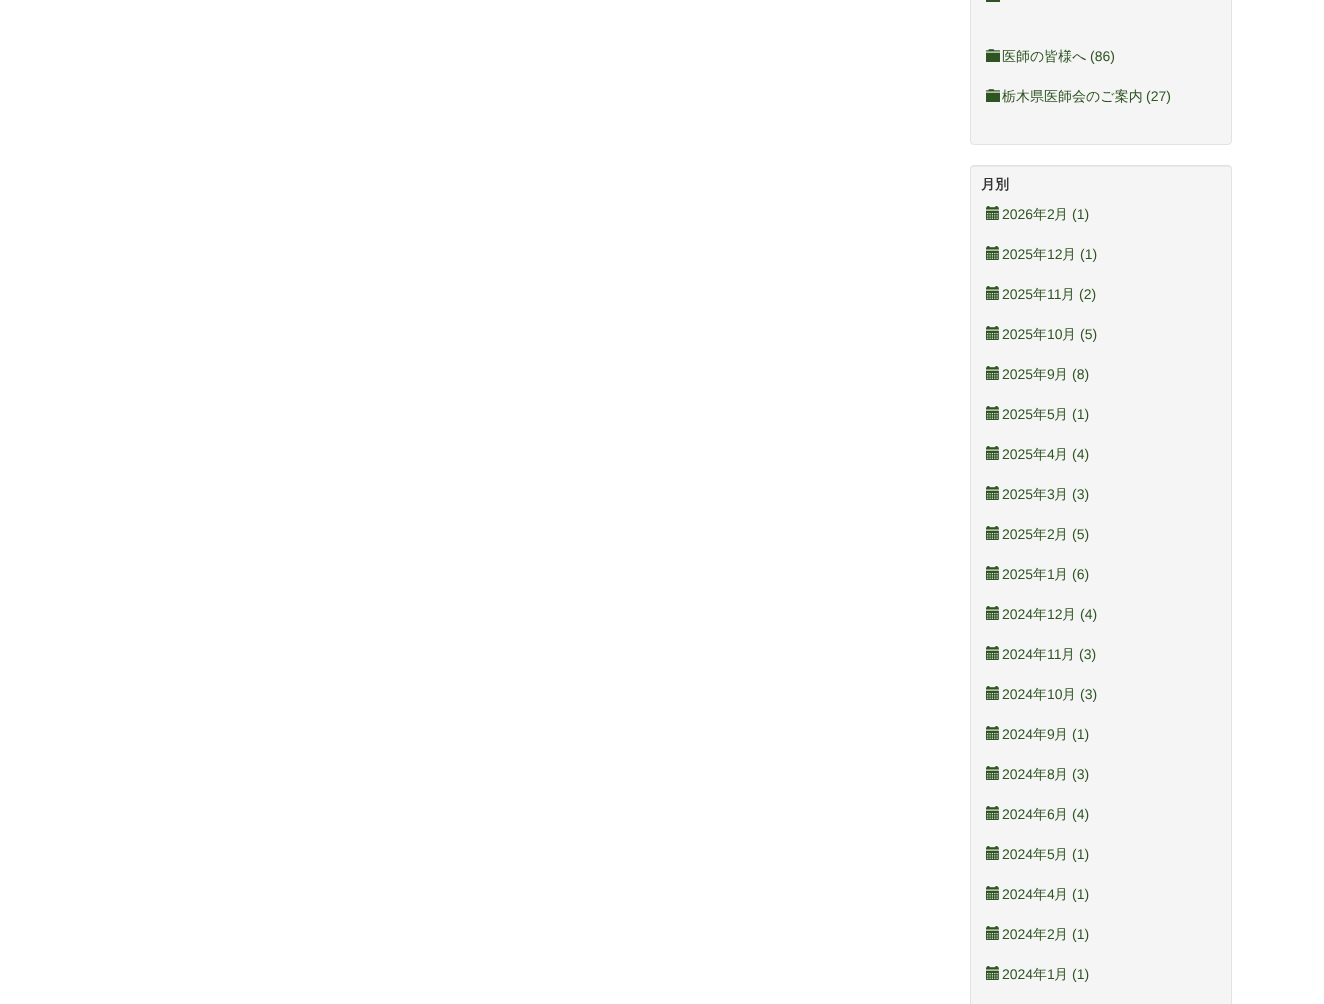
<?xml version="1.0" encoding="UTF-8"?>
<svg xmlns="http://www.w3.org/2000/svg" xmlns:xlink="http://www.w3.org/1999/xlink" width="1324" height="1004">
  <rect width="100%" height="100%" fill="#ffffff" />
  <rect x="970.5" y="-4.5" width="261" height="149" rx="3.5" fill="#f5f5f5" stroke="#e3e3e3" />
  <rect x="986" width="14" height="2" fill="#2e5421" />
  <image x="986" y="49" width="14" height="13" xlink:href="image1.png" />
  <image x="986" y="89" width="14" height="13" xlink:href="image1.png" />
  <rect x="970" y="165" width="262" height="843" rx="4" fill="#f5f5f5" />
  <path d="M 974 167 h 255 l 2 1 v 2 v -1 c 0 -2 -1 -3 -3 -3 h -254 c -2 0 -3 1 -3 3 v 1 c 0 -2 1 -3 3 -3 z" fill="#e9e9e9" />
  <rect x="970.5" y="165.5" width="261" height="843" rx="3.5" fill="none" stroke="#e3e3e3" />
  <image x="986" y="206" width="13" height="14" xlink:href="image2.png" />
  <image x="986" y="246" width="13" height="14" xlink:href="image2.png" />
  <image x="986" y="286" width="13" height="14" xlink:href="image2.png" />
  <image x="986" y="326" width="13" height="14" xlink:href="image2.png" />
  <image x="986" y="366" width="13" height="14" xlink:href="image2.png" />
  <image x="986" y="406" width="13" height="14" xlink:href="image2.png" />
  <image x="986" y="446" width="13" height="14" xlink:href="image2.png" />
  <image x="986" y="486" width="13" height="14" xlink:href="image2.png" />
  <image x="986" y="526" width="13" height="14" xlink:href="image2.png" />
  <image x="986" y="566" width="13" height="14" xlink:href="image2.png" />
  <image x="986" y="606" width="13" height="14" xlink:href="image2.png" />
  <image x="986" y="646" width="13" height="14" xlink:href="image2.png" />
  <image x="986" y="686" width="13" height="14" xlink:href="image2.png" />
  <image x="986" y="726" width="13" height="14" xlink:href="image2.png" />
  <image x="986" y="766" width="13" height="14" xlink:href="image2.png" />
  <image x="986" y="806" width="13" height="14" xlink:href="image2.png" />
  <image x="986" y="846" width="13" height="14" xlink:href="image2.png" />
  <image x="986" y="886" width="13" height="14" xlink:href="image2.png" />
  <image x="986" y="926" width="13" height="14" xlink:href="image2.png" />
  <image x="986" y="966" width="13" height="14" xlink:href="image2.png" />
  <text x="1002" y="61" style="font-family: WenQuanYi Zen Hei; font-size: 14px; font-weight: 500; fill: #2e5421">医師の皆様へ</text>
  <text x="1090" y="61" style="font-family: Liberation Sans; font-size: 14px; fill: #2e5421">(86)</text>
  <text x="1002" y="101" style="font-family: WenQuanYi Zen Hei; font-size: 14px; font-weight: 500; fill: #2e5421">栃木県医師会のご案内</text>
  <text x="1146" y="101" style="font-family: Liberation Sans; font-size: 14px; fill: #2e5421">(27)</text>
  <text x="981" y="189" style="font-family: WenQuanYi Zen Hei; font-size: 14px; font-weight: bold; fill: #333333">月別</text>
  <text x="1002" y="219" style="font-family: Liberation Sans; font-size: 14px; fill: #2e5421">2026</text>
  <text x="1033" y="219" style="font-family: WenQuanYi Zen Hei; font-size: 14px; font-weight: 500; fill: #2e5421">年</text>
  <text x="1047" y="219" style="font-family: Liberation Sans; font-size: 14px; fill: #2e5421">2</text>
  <text x="1054" y="219" style="font-family: WenQuanYi Zen Hei; font-size: 14px; font-weight: 500; fill: #2e5421">月</text>
  <text x="1072" y="219" style="font-family: Liberation Sans; font-size: 14px; fill: #2e5421">(1)</text>
  <text x="1002" y="259" style="font-family: Liberation Sans; font-size: 14px; fill: #2e5421">2025</text>
  <text x="1033" y="259" style="font-family: WenQuanYi Zen Hei; font-size: 14px; font-weight: 500; fill: #2e5421">年</text>
  <text x="1047" y="259" style="font-family: Liberation Sans; font-size: 14px; fill: #2e5421">12</text>
  <text x="1062" y="259" style="font-family: WenQuanYi Zen Hei; font-size: 14px; font-weight: 500; fill: #2e5421">月</text>
  <text x="1080" y="259" style="font-family: Liberation Sans; font-size: 14px; fill: #2e5421">(1)</text>
  <text x="1002" y="299" style="font-family: Liberation Sans; font-size: 14px; fill: #2e5421">2025</text>
  <text x="1033" y="299" style="font-family: WenQuanYi Zen Hei; font-size: 14px; font-weight: 500; fill: #2e5421">年</text>
  <text x="1047" y="299" style="font-family: Liberation Sans; font-size: 14px; fill: #2e5421">11</text>
  <text x="1061" y="299" style="font-family: WenQuanYi Zen Hei; font-size: 14px; font-weight: 500; fill: #2e5421">月</text>
  <text x="1079" y="299" style="font-family: Liberation Sans; font-size: 14px; fill: #2e5421">(2)</text>
  <text x="1002" y="339" style="font-family: Liberation Sans; font-size: 14px; fill: #2e5421">2025</text>
  <text x="1033" y="339" style="font-family: WenQuanYi Zen Hei; font-size: 14px; font-weight: 500; fill: #2e5421">年</text>
  <text x="1047" y="339" style="font-family: Liberation Sans; font-size: 14px; fill: #2e5421">10</text>
  <text x="1062" y="339" style="font-family: WenQuanYi Zen Hei; font-size: 14px; font-weight: 500; fill: #2e5421">月</text>
  <text x="1080" y="339" style="font-family: Liberation Sans; font-size: 14px; fill: #2e5421">(5)</text>
  <text x="1002" y="379" style="font-family: Liberation Sans; font-size: 14px; fill: #2e5421">2025</text>
  <text x="1033" y="379" style="font-family: WenQuanYi Zen Hei; font-size: 14px; font-weight: 500; fill: #2e5421">年</text>
  <text x="1047" y="379" style="font-family: Liberation Sans; font-size: 14px; fill: #2e5421">9</text>
  <text x="1054" y="379" style="font-family: WenQuanYi Zen Hei; font-size: 14px; font-weight: 500; fill: #2e5421">月</text>
  <text x="1072" y="379" style="font-family: Liberation Sans; font-size: 14px; fill: #2e5421">(8)</text>
  <text x="1002" y="419" style="font-family: Liberation Sans; font-size: 14px; fill: #2e5421">2025</text>
  <text x="1033" y="419" style="font-family: WenQuanYi Zen Hei; font-size: 14px; font-weight: 500; fill: #2e5421">年</text>
  <text x="1047" y="419" style="font-family: Liberation Sans; font-size: 14px; fill: #2e5421">5</text>
  <text x="1054" y="419" style="font-family: WenQuanYi Zen Hei; font-size: 14px; font-weight: 500; fill: #2e5421">月</text>
  <text x="1072" y="419" style="font-family: Liberation Sans; font-size: 14px; fill: #2e5421">(1)</text>
  <text x="1002" y="459" style="font-family: Liberation Sans; font-size: 14px; fill: #2e5421">2025</text>
  <text x="1033" y="459" style="font-family: WenQuanYi Zen Hei; font-size: 14px; font-weight: 500; fill: #2e5421">年</text>
  <text x="1047" y="459" style="font-family: Liberation Sans; font-size: 14px; fill: #2e5421">4</text>
  <text x="1054" y="459" style="font-family: WenQuanYi Zen Hei; font-size: 14px; font-weight: 500; fill: #2e5421">月</text>
  <text x="1072" y="459" style="font-family: Liberation Sans; font-size: 14px; fill: #2e5421">(4)</text>
  <text x="1002" y="499" style="font-family: Liberation Sans; font-size: 14px; fill: #2e5421">2025</text>
  <text x="1033" y="499" style="font-family: WenQuanYi Zen Hei; font-size: 14px; font-weight: 500; fill: #2e5421">年</text>
  <text x="1047" y="499" style="font-family: Liberation Sans; font-size: 14px; fill: #2e5421">3</text>
  <text x="1054" y="499" style="font-family: WenQuanYi Zen Hei; font-size: 14px; font-weight: 500; fill: #2e5421">月</text>
  <text x="1072" y="499" style="font-family: Liberation Sans; font-size: 14px; fill: #2e5421">(3)</text>
  <text x="1002" y="539" style="font-family: Liberation Sans; font-size: 14px; fill: #2e5421">2025</text>
  <text x="1033" y="539" style="font-family: WenQuanYi Zen Hei; font-size: 14px; font-weight: 500; fill: #2e5421">年</text>
  <text x="1047" y="539" style="font-family: Liberation Sans; font-size: 14px; fill: #2e5421">2</text>
  <text x="1054" y="539" style="font-family: WenQuanYi Zen Hei; font-size: 14px; font-weight: 500; fill: #2e5421">月</text>
  <text x="1072" y="539" style="font-family: Liberation Sans; font-size: 14px; fill: #2e5421">(5)</text>
  <text x="1002" y="579" style="font-family: Liberation Sans; font-size: 14px; fill: #2e5421">2025</text>
  <text x="1033" y="579" style="font-family: WenQuanYi Zen Hei; font-size: 14px; font-weight: 500; fill: #2e5421">年</text>
  <text x="1047" y="579" style="font-family: Liberation Sans; font-size: 14px; fill: #2e5421">1</text>
  <text x="1054" y="579" style="font-family: WenQuanYi Zen Hei; font-size: 14px; font-weight: 500; fill: #2e5421">月</text>
  <text x="1072" y="579" style="font-family: Liberation Sans; font-size: 14px; fill: #2e5421">(6)</text>
  <text x="1002" y="619" style="font-family: Liberation Sans; font-size: 14px; fill: #2e5421">2024</text>
  <text x="1033" y="619" style="font-family: WenQuanYi Zen Hei; font-size: 14px; font-weight: 500; fill: #2e5421">年</text>
  <text x="1047" y="619" style="font-family: Liberation Sans; font-size: 14px; fill: #2e5421">12</text>
  <text x="1062" y="619" style="font-family: WenQuanYi Zen Hei; font-size: 14px; font-weight: 500; fill: #2e5421">月</text>
  <text x="1080" y="619" style="font-family: Liberation Sans; font-size: 14px; fill: #2e5421">(4)</text>
  <text x="1002" y="659" style="font-family: Liberation Sans; font-size: 14px; fill: #2e5421">2024</text>
  <text x="1033" y="659" style="font-family: WenQuanYi Zen Hei; font-size: 14px; font-weight: 500; fill: #2e5421">年</text>
  <text x="1047" y="659" style="font-family: Liberation Sans; font-size: 14px; fill: #2e5421">11</text>
  <text x="1061" y="659" style="font-family: WenQuanYi Zen Hei; font-size: 14px; font-weight: 500; fill: #2e5421">月</text>
  <text x="1079" y="659" style="font-family: Liberation Sans; font-size: 14px; fill: #2e5421">(3)</text>
  <text x="1002" y="699" style="font-family: Liberation Sans; font-size: 14px; fill: #2e5421">2024</text>
  <text x="1033" y="699" style="font-family: WenQuanYi Zen Hei; font-size: 14px; font-weight: 500; fill: #2e5421">年</text>
  <text x="1047" y="699" style="font-family: Liberation Sans; font-size: 14px; fill: #2e5421">10</text>
  <text x="1062" y="699" style="font-family: WenQuanYi Zen Hei; font-size: 14px; font-weight: 500; fill: #2e5421">月</text>
  <text x="1080" y="699" style="font-family: Liberation Sans; font-size: 14px; fill: #2e5421">(3)</text>
  <text x="1002" y="739" style="font-family: Liberation Sans; font-size: 14px; fill: #2e5421">2024</text>
  <text x="1033" y="739" style="font-family: WenQuanYi Zen Hei; font-size: 14px; font-weight: 500; fill: #2e5421">年</text>
  <text x="1047" y="739" style="font-family: Liberation Sans; font-size: 14px; fill: #2e5421">9</text>
  <text x="1054" y="739" style="font-family: WenQuanYi Zen Hei; font-size: 14px; font-weight: 500; fill: #2e5421">月</text>
  <text x="1072" y="739" style="font-family: Liberation Sans; font-size: 14px; fill: #2e5421">(1)</text>
  <text x="1002" y="779" style="font-family: Liberation Sans; font-size: 14px; fill: #2e5421">2024</text>
  <text x="1033" y="779" style="font-family: WenQuanYi Zen Hei; font-size: 14px; font-weight: 500; fill: #2e5421">年</text>
  <text x="1047" y="779" style="font-family: Liberation Sans; font-size: 14px; fill: #2e5421">8</text>
  <text x="1054" y="779" style="font-family: WenQuanYi Zen Hei; font-size: 14px; font-weight: 500; fill: #2e5421">月</text>
  <text x="1072" y="779" style="font-family: Liberation Sans; font-size: 14px; fill: #2e5421">(3)</text>
  <text x="1002" y="819" style="font-family: Liberation Sans; font-size: 14px; fill: #2e5421">2024</text>
  <text x="1033" y="819" style="font-family: WenQuanYi Zen Hei; font-size: 14px; font-weight: 500; fill: #2e5421">年</text>
  <text x="1047" y="819" style="font-family: Liberation Sans; font-size: 14px; fill: #2e5421">6</text>
  <text x="1054" y="819" style="font-family: WenQuanYi Zen Hei; font-size: 14px; font-weight: 500; fill: #2e5421">月</text>
  <text x="1072" y="819" style="font-family: Liberation Sans; font-size: 14px; fill: #2e5421">(4)</text>
  <text x="1002" y="859" style="font-family: Liberation Sans; font-size: 14px; fill: #2e5421">2024</text>
  <text x="1033" y="859" style="font-family: WenQuanYi Zen Hei; font-size: 14px; font-weight: 500; fill: #2e5421">年</text>
  <text x="1047" y="859" style="font-family: Liberation Sans; font-size: 14px; fill: #2e5421">5</text>
  <text x="1054" y="859" style="font-family: WenQuanYi Zen Hei; font-size: 14px; font-weight: 500; fill: #2e5421">月</text>
  <text x="1072" y="859" style="font-family: Liberation Sans; font-size: 14px; fill: #2e5421">(1)</text>
  <text x="1002" y="899" style="font-family: Liberation Sans; font-size: 14px; fill: #2e5421">2024</text>
  <text x="1033" y="899" style="font-family: WenQuanYi Zen Hei; font-size: 14px; font-weight: 500; fill: #2e5421">年</text>
  <text x="1047" y="899" style="font-family: Liberation Sans; font-size: 14px; fill: #2e5421">4</text>
  <text x="1054" y="899" style="font-family: WenQuanYi Zen Hei; font-size: 14px; font-weight: 500; fill: #2e5421">月</text>
  <text x="1072" y="899" style="font-family: Liberation Sans; font-size: 14px; fill: #2e5421">(1)</text>
  <text x="1002" y="939" style="font-family: Liberation Sans; font-size: 14px; fill: #2e5421">2024</text>
  <text x="1033" y="939" style="font-family: WenQuanYi Zen Hei; font-size: 14px; font-weight: 500; fill: #2e5421">年</text>
  <text x="1047" y="939" style="font-family: Liberation Sans; font-size: 14px; fill: #2e5421">2</text>
  <text x="1054" y="939" style="font-family: WenQuanYi Zen Hei; font-size: 14px; font-weight: 500; fill: #2e5421">月</text>
  <text x="1072" y="939" style="font-family: Liberation Sans; font-size: 14px; fill: #2e5421">(1)</text>
  <text x="1002" y="979" style="font-family: Liberation Sans; font-size: 14px; fill: #2e5421">2024</text>
  <text x="1033" y="979" style="font-family: WenQuanYi Zen Hei; font-size: 14px; font-weight: 500; fill: #2e5421">年</text>
  <text x="1047" y="979" style="font-family: Liberation Sans; font-size: 14px; fill: #2e5421">1</text>
  <text x="1054" y="979" style="font-family: WenQuanYi Zen Hei; font-size: 14px; font-weight: 500; fill: #2e5421">月</text>
  <text x="1072" y="979" style="font-family: Liberation Sans; font-size: 14px; fill: #2e5421">(1)</text>
</svg>
